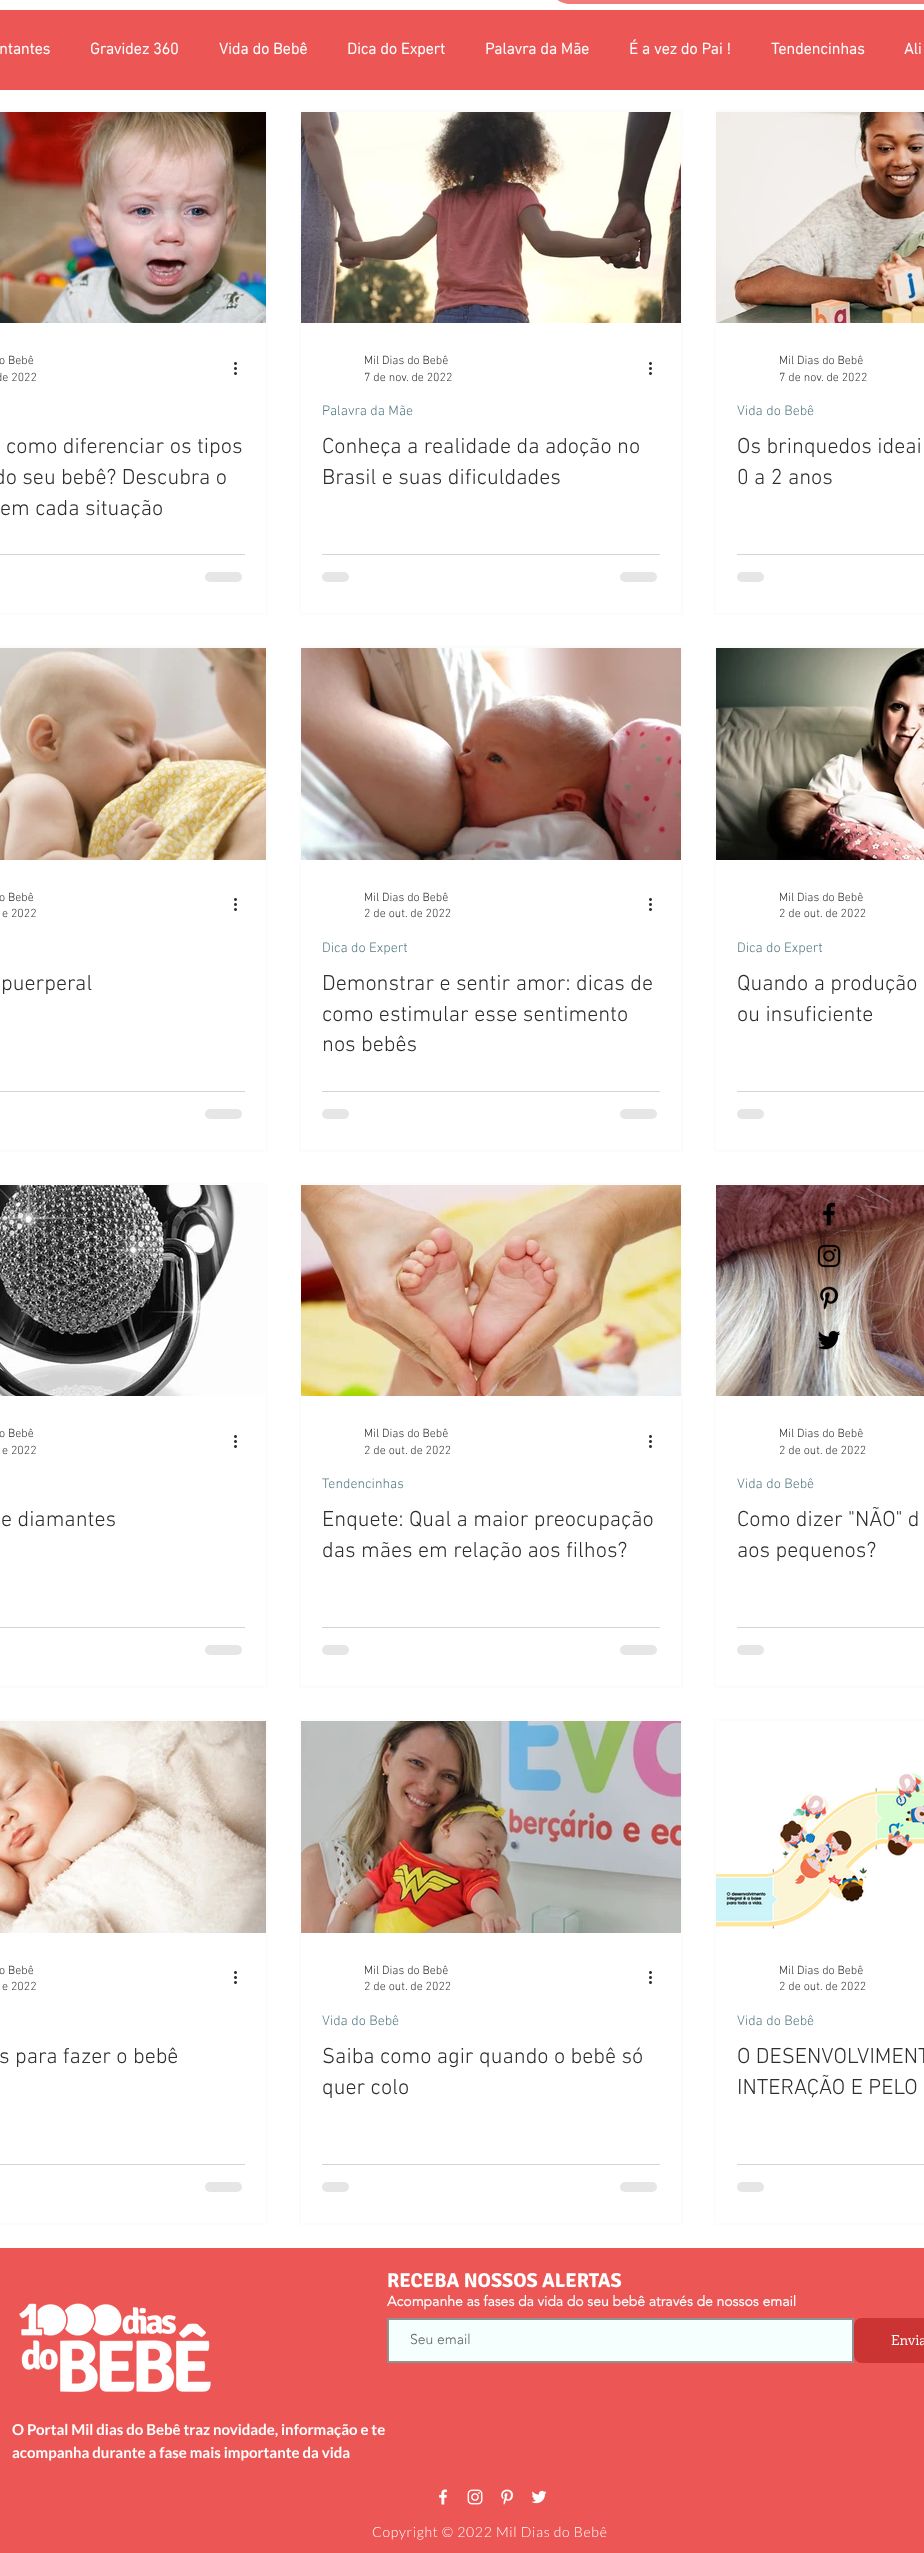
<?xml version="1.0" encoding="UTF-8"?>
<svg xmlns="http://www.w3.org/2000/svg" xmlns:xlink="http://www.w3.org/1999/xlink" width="924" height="2553">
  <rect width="100%" height="100%" fill="#ffffff" />
  <rect x="554" y="-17" width="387" height="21" rx="17" fill="#f07b7a" />
  <rect y="10" width="924" height="80" fill="#ec5654" />
  <rect x="-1" y="111" width="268" height="503" fill="none" stroke="#fcfcfc" stroke-width="2" />
  <image x="0" y="112" width="266" height="211" xlink:href="image1.png" />
  <image x="234" y="362" width="3" height="13" xlink:href="image2.png" />
  <rect y="554" width="245" height="1" fill="#d5d5d5" />
  <rect x="205" y="572" width="37" height="10" rx="5" fill="#e6e6e6" />
  <rect x="300" y="111" width="382" height="503" fill="none" stroke="#fcfcfc" stroke-width="2" />
  <image x="301" y="112" width="380" height="211" xlink:href="image3.png" />
  <image x="649" y="362" width="3" height="13" xlink:href="image2.png" />
  <rect x="322" y="554" width="338" height="1" fill="#d5d5d5" />
  <rect x="322" y="572" width="27" height="10" rx="5" fill="#e6e6e6" />
  <rect x="620" y="572" width="37" height="10" rx="5" fill="#e6e6e6" />
  <rect x="715" y="111" width="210" height="503" fill="none" stroke="#fcfcfc" stroke-width="2" />
  <image x="716" y="112" width="208" height="211" xlink:href="image4.png" />
  <rect x="737" y="554" width="187" height="1" fill="#d5d5d5" />
  <rect x="737" y="572" width="27" height="10" rx="5" fill="#e6e6e6" />
  <rect x="-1" y="647" width="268" height="504" fill="none" stroke="#fcfcfc" stroke-width="2" />
  <image x="0" y="648" width="266" height="212" xlink:href="image5.png" />
  <image x="234" y="898" width="3" height="13" xlink:href="image2.png" />
  <rect y="1091" width="245" height="1" fill="#d5d5d5" />
  <rect x="205" y="1109" width="37" height="10" rx="5" fill="#e6e6e6" />
  <rect x="300" y="647" width="382" height="504" fill="none" stroke="#fcfcfc" stroke-width="2" />
  <image x="301" y="648" width="380" height="212" xlink:href="image6.png" />
  <image x="649" y="898" width="3" height="13" xlink:href="image2.png" />
  <rect x="322" y="1091" width="338" height="1" fill="#d5d5d5" />
  <rect x="322" y="1109" width="27" height="10" rx="5" fill="#e6e6e6" />
  <rect x="620" y="1109" width="37" height="10" rx="5" fill="#e6e6e6" />
  <rect x="715" y="647" width="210" height="504" fill="none" stroke="#fcfcfc" stroke-width="2" />
  <image x="716" y="648" width="208" height="212" xlink:href="image7.png" />
  <rect x="737" y="1091" width="187" height="1" fill="#d5d5d5" />
  <rect x="737" y="1109" width="27" height="10" rx="5" fill="#e6e6e6" />
  <rect x="-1" y="1184" width="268" height="503" fill="none" stroke="#fcfcfc" stroke-width="2" />
  <image x="0" y="1185" width="266" height="211" xlink:href="image8.png" />
  <image x="234" y="1435" width="3" height="13" xlink:href="image2.png" />
  <rect y="1627" width="245" height="1" fill="#d5d5d5" />
  <rect x="205" y="1645" width="37" height="10" rx="5" fill="#e6e6e6" />
  <rect x="300" y="1184" width="382" height="503" fill="none" stroke="#fcfcfc" stroke-width="2" />
  <image x="301" y="1185" width="380" height="211" xlink:href="image9.png" />
  <image x="649" y="1435" width="3" height="13" xlink:href="image2.png" />
  <rect x="322" y="1627" width="338" height="1" fill="#d5d5d5" />
  <rect x="322" y="1645" width="27" height="10" rx="5" fill="#e6e6e6" />
  <rect x="620" y="1645" width="37" height="10" rx="5" fill="#e6e6e6" />
  <rect x="715" y="1184" width="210" height="503" fill="none" stroke="#fcfcfc" stroke-width="2" />
  <image x="716" y="1185" width="208" height="211" xlink:href="image10.png" />
  <rect x="737" y="1627" width="187" height="1" fill="#d5d5d5" />
  <rect x="737" y="1645" width="27" height="10" rx="5" fill="#e6e6e6" />
  <rect x="-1" y="1720" width="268" height="504" fill="none" stroke="#fcfcfc" stroke-width="2" />
  <image x="0" y="1721" width="266" height="212" xlink:href="image11.png" />
  <image x="234" y="1971" width="3" height="13" xlink:href="image2.png" />
  <rect y="2164" width="245" height="1" fill="#d5d5d5" />
  <rect x="205" y="2182" width="37" height="10" rx="5" fill="#e6e6e6" />
  <rect x="300" y="1720" width="382" height="504" fill="none" stroke="#fcfcfc" stroke-width="2" />
  <image x="301" y="1721" width="380" height="212" xlink:href="image12.png" />
  <image x="649" y="1971" width="3" height="13" xlink:href="image2.png" />
  <rect x="322" y="2164" width="338" height="1" fill="#d5d5d5" />
  <rect x="322" y="2182" width="27" height="10" rx="5" fill="#e6e6e6" />
  <rect x="620" y="2182" width="37" height="10" rx="5" fill="#e6e6e6" />
  <rect x="715" y="1720" width="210" height="504" fill="none" stroke="#fcfcfc" stroke-width="2" />
  <image x="716" y="1737" width="208" height="198" xlink:href="image13.png" />
  <rect x="737" y="2164" width="187" height="1" fill="#d5d5d5" />
  <rect x="737" y="2182" width="27" height="10" rx="5" fill="#e6e6e6" />
  <image x="823" y="1202" width="13" height="24" xlink:href="image14.png" />
  <image x="817" y="1244" width="24" height="24" xlink:href="image15.png" />
  <image x="819" y="1286" width="20" height="24" xlink:href="image16.png" />
  <image x="818" y="1330" width="23" height="20" xlink:href="image17.png" />
  <rect y="2248" width="924" height="305" fill="#ec5654" />
  <image x="19" y="2303" width="192" height="89" xlink:href="image18.png" />
  <rect x="388" y="2319" width="465" height="43" fill="#f5fffe" stroke="#919191" stroke-width="2" />
  <rect x="854" y="2318" width="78" height="45" rx="8" fill="#cc3333" />
  <image x="439" y="2489" width="9" height="16" xlink:href="image19.png" />
  <image x="467" y="2489" width="16" height="16" xlink:href="image20.png" />
  <image x="501" y="2489" width="13" height="16" xlink:href="image21.png" />
  <image x="531" y="2490" width="16" height="14" xlink:href="image22.png" />
  <text x="-1" y="54" style="font-family: 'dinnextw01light'; font-size: 16px; font-weight: bold; fill: #ffffff">ntantes</text>
  <text x="90" y="54" style="font-family: 'dinnextw01light'; font-size: 16px; font-weight: bold; fill: #ffffff">Gravidez 360</text>
  <text x="219" y="54" style="font-family: 'dinnextw01light'; font-size: 16px; font-weight: bold; fill: #ffffff">Vida do Bebê</text>
  <text x="347" y="54" style="font-family: 'dinnextw01light'; font-size: 16px; font-weight: bold; fill: #ffffff">Dica do Expert</text>
  <text x="485" y="54" style="font-family: 'dinnextw01light'; font-size: 16px; font-weight: bold; fill: #ffffff">Palavra da Mãe</text>
  <text x="629" y="54" style="font-family: 'dinnextw01light'; font-size: 16px; font-weight: bold; fill: #ffffff">É a vez do Pai !</text>
  <text x="771" y="54" style="font-family: 'dinnextw01light'; font-size: 16px; font-weight: bold; fill: #ffffff">Tendencinhas</text>
  <text x="904" y="54" style="font-family: 'dinnextw01light'; font-size: 16px; font-weight: bold; fill: #ffffff">Ali</text>
  <text x="-1" y="364" style="font-family: 'dinnextw01light'; font-size: 12px; font-weight: 300; fill: #2e2e2e">o Bebê</text>
  <text x="-4" y="381" style="font-family: 'dinnextw01light'; font-size: 12px; font-weight: 300; fill: #2e2e2e">de 2022</text>
  <text x="6" y="453" style="font-family: 'dinnextw01light'; font-size: 22px; font-weight: 300; fill: #2e2e2e">como diferenciar os tipos</text>
  <text x="-6" y="484" style="font-family: 'dinnextw01light'; font-size: 22px; font-weight: 300; fill: #2e2e2e">do seu bebê? Descubra o</text>
  <text x="0" y="515" style="font-family: 'dinnextw01light'; font-size: 22px; font-weight: 300; fill: #2e2e2e">em cada situação</text>
  <text x="364" y="364" style="font-family: 'dinnextw01light'; font-size: 12px; font-weight: 300; fill: #2e2e2e">Mil Dias do Bebê</text>
  <text x="364" y="381" style="font-family: 'dinnextw01light'; font-size: 12px; font-weight: 300; fill: #2e2e2e">7 de nov. de 2022</text>
  <text x="322" y="415" style="font-family: 'dinnextw01light'; font-size: 14px; font-weight: 300; fill: #577b85">Palavra da Mãe</text>
  <text x="322" y="453" style="font-family: 'dinnextw01light'; font-size: 22px; font-weight: 300; fill: #2e2e2e">Conheça a realidade da adoção no</text>
  <text x="322" y="484" style="font-family: 'dinnextw01light'; font-size: 22px; font-weight: 300; fill: #2e2e2e">Brasil e suas dificuldades</text>
  <text x="779" y="364" style="font-family: 'dinnextw01light'; font-size: 12px; font-weight: 300; fill: #2e2e2e">Mil Dias do Bebê</text>
  <text x="779" y="381" style="font-family: 'dinnextw01light'; font-size: 12px; font-weight: 300; fill: #2e2e2e">7 de nov. de 2022</text>
  <text x="737" y="415" style="font-family: 'dinnextw01light'; font-size: 14px; font-weight: 300; fill: #577b85">Vida do Bebê</text>
  <text x="737" y="453" style="font-family: 'dinnextw01light'; font-size: 22px; font-weight: 300; fill: #2e2e2e">Os brinquedos ideai</text>
  <text x="737" y="484" style="font-family: 'dinnextw01light'; font-size: 22px; font-weight: 300; fill: #2e2e2e">0 a 2 anos</text>
  <text x="-1" y="901" style="font-family: 'dinnextw01light'; font-size: 12px; font-weight: 300; fill: #2e2e2e">o Bebê</text>
  <text x="2" y="917" style="font-family: 'dinnextw01light'; font-size: 12px; font-weight: 300; fill: #2e2e2e">e 2022</text>
  <text x="1" y="990" style="font-family: 'dinnextw01light'; font-size: 22px; font-weight: 300; fill: #2e2e2e">puerperal</text>
  <text x="364" y="901" style="font-family: 'dinnextw01light'; font-size: 12px; font-weight: 300; fill: #2e2e2e">Mil Dias do Bebê</text>
  <text x="364" y="917" style="font-family: 'dinnextw01light'; font-size: 12px; font-weight: 300; fill: #2e2e2e">2 de out. de 2022</text>
  <text x="322" y="952" style="font-family: 'dinnextw01light'; font-size: 14px; font-weight: 300; fill: #577b85">Dica do Expert</text>
  <text x="322" y="990" style="font-family: 'dinnextw01light'; font-size: 22px; font-weight: 300; fill: #2e2e2e">Demonstrar e sentir amor: dicas de</text>
  <text x="322" y="1021" style="font-family: 'dinnextw01light'; font-size: 22px; font-weight: 300; fill: #2e2e2e">como estimular esse sentimento</text>
  <text x="322" y="1051" style="font-family: 'dinnextw01light'; font-size: 22px; font-weight: 300; fill: #2e2e2e">nos bebês</text>
  <text x="779" y="901" style="font-family: 'dinnextw01light'; font-size: 12px; font-weight: 300; fill: #2e2e2e">Mil Dias do Bebê</text>
  <text x="779" y="917" style="font-family: 'dinnextw01light'; font-size: 12px; font-weight: 300; fill: #2e2e2e">2 de out. de 2022</text>
  <text x="737" y="952" style="font-family: 'dinnextw01light'; font-size: 14px; font-weight: 300; fill: #577b85">Dica do Expert</text>
  <text x="737" y="990" style="font-family: 'dinnextw01light'; font-size: 22px; font-weight: 300; fill: #2e2e2e">Quando a produção</text>
  <text x="737" y="1021" style="font-family: 'dinnextw01light'; font-size: 22px; font-weight: 300; fill: #2e2e2e">ou insuficiente</text>
  <text x="-1" y="1437" style="font-family: 'dinnextw01light'; font-size: 12px; font-weight: 300; fill: #2e2e2e">o Bebê</text>
  <text x="2" y="1454" style="font-family: 'dinnextw01light'; font-size: 12px; font-weight: 300; fill: #2e2e2e">e 2022</text>
  <text x="1" y="1526" style="font-family: 'dinnextw01light'; font-size: 22px; font-weight: 300; fill: #2e2e2e">e diamantes</text>
  <text x="364" y="1437" style="font-family: 'dinnextw01light'; font-size: 12px; font-weight: 300; fill: #2e2e2e">Mil Dias do Bebê</text>
  <text x="364" y="1454" style="font-family: 'dinnextw01light'; font-size: 12px; font-weight: 300; fill: #2e2e2e">2 de out. de 2022</text>
  <text x="322" y="1488" style="font-family: 'dinnextw01light'; font-size: 14px; font-weight: 300; fill: #577b85">Tendencinhas</text>
  <text x="322" y="1526" style="font-family: 'dinnextw01light'; font-size: 22px; font-weight: 300; fill: #2e2e2e">Enquete: Qual a maior preocupação</text>
  <text x="322" y="1557" style="font-family: 'dinnextw01light'; font-size: 22px; font-weight: 300; fill: #2e2e2e">das mães em relação aos filhos?</text>
  <text x="779" y="1437" style="font-family: 'dinnextw01light'; font-size: 12px; font-weight: 300; fill: #2e2e2e">Mil Dias do Bebê</text>
  <text x="779" y="1454" style="font-family: 'dinnextw01light'; font-size: 12px; font-weight: 300; fill: #2e2e2e">2 de out. de 2022</text>
  <text x="737" y="1488" style="font-family: 'dinnextw01light'; font-size: 14px; font-weight: 300; fill: #577b85">Vida do Bebê</text>
  <text x="737" y="1526" style="font-family: 'dinnextw01light'; font-size: 22px; font-weight: 300; fill: #2e2e2e">Como dizer "NÃO" d</text>
  <text x="737" y="1557" style="font-family: 'dinnextw01light'; font-size: 22px; font-weight: 300; fill: #2e2e2e">aos pequenos?</text>
  <text x="-1" y="1974" style="font-family: 'dinnextw01light'; font-size: 12px; font-weight: 300; fill: #2e2e2e">o Bebê</text>
  <text x="2" y="1990" style="font-family: 'dinnextw01light'; font-size: 12px; font-weight: 300; fill: #2e2e2e">e 2022</text>
  <text x="-1" y="2063" style="font-family: 'dinnextw01light'; font-size: 22px; font-weight: 300; fill: #2e2e2e">s para fazer o bebê</text>
  <text x="364" y="1974" style="font-family: 'dinnextw01light'; font-size: 12px; font-weight: 300; fill: #2e2e2e">Mil Dias do Bebê</text>
  <text x="364" y="1990" style="font-family: 'dinnextw01light'; font-size: 12px; font-weight: 300; fill: #2e2e2e">2 de out. de 2022</text>
  <text x="322" y="2025" style="font-family: 'dinnextw01light'; font-size: 14px; font-weight: 300; fill: #577b85">Vida do Bebê</text>
  <text x="322" y="2063" style="font-family: 'dinnextw01light'; font-size: 22px; font-weight: 300; fill: #2e2e2e">Saiba como agir quando o bebê só</text>
  <text x="322" y="2094" style="font-family: 'dinnextw01light'; font-size: 22px; font-weight: 300; fill: #2e2e2e">quer colo</text>
  <text x="779" y="1974" style="font-family: 'dinnextw01light'; font-size: 12px; font-weight: 300; fill: #2e2e2e">Mil Dias do Bebê</text>
  <text x="779" y="1990" style="font-family: 'dinnextw01light'; font-size: 12px; font-weight: 300; fill: #2e2e2e">2 de out. de 2022</text>
  <text x="737" y="2025" style="font-family: 'dinnextw01light'; font-size: 14px; font-weight: 300; fill: #577b85">Vida do Bebê</text>
  <text x="737" y="2063" style="font-family: 'dinnextw01light'; font-size: 22px; font-weight: 300; fill: #2e2e2e">O DESENVOLVIMENT</text>
  <text x="737" y="2094" style="font-family: 'dinnextw01light'; font-size: 22px; font-weight: 300; fill: #2e2e2e">INTERAÇÃO E PELO</text>
  <text x="387" y="2287" style="font-family: Signika; font-size: 20px; font-weight: bold; fill: #ffffff">RECEBA NOSSOS ALERTAS</text>
  <text x="387" y="2306" style="font-family: 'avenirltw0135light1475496'; font-size: 14px; font-weight: bold; fill: #ffffff">Acompanhe as fases da vida do seu bebê através de nossos email</text>
  <text x="410" y="2344" style="font-family: 'avenirltw0135light1475496'; font-size: 14px; font-weight: 300; fill: #646464">Seu email</text>
  <text x="891" y="2345" style="font-family: Enriqueta; font-size: 14px; fill: #ffffff">Envia</text>
  <text x="12" y="2435" style="font-family: Lato; font-size: 15px; font-weight: bold; fill: #ffffff">O Portal Mil dias do Bebê traz novidade, informação e te</text>
  <text x="12" y="2458" style="font-family: Lato; font-size: 15px; font-weight: bold; fill: #ffffff">acompanha durante a fase mais importante da vida</text>
  <text x="372" y="2537" style="font-family: Lato; font-size: 14px; font-weight: 300; letter-spacing: 0.7px; fill: #ffffff">Copyright © 2022 Mil Dias do Bebê</text>
</svg>
